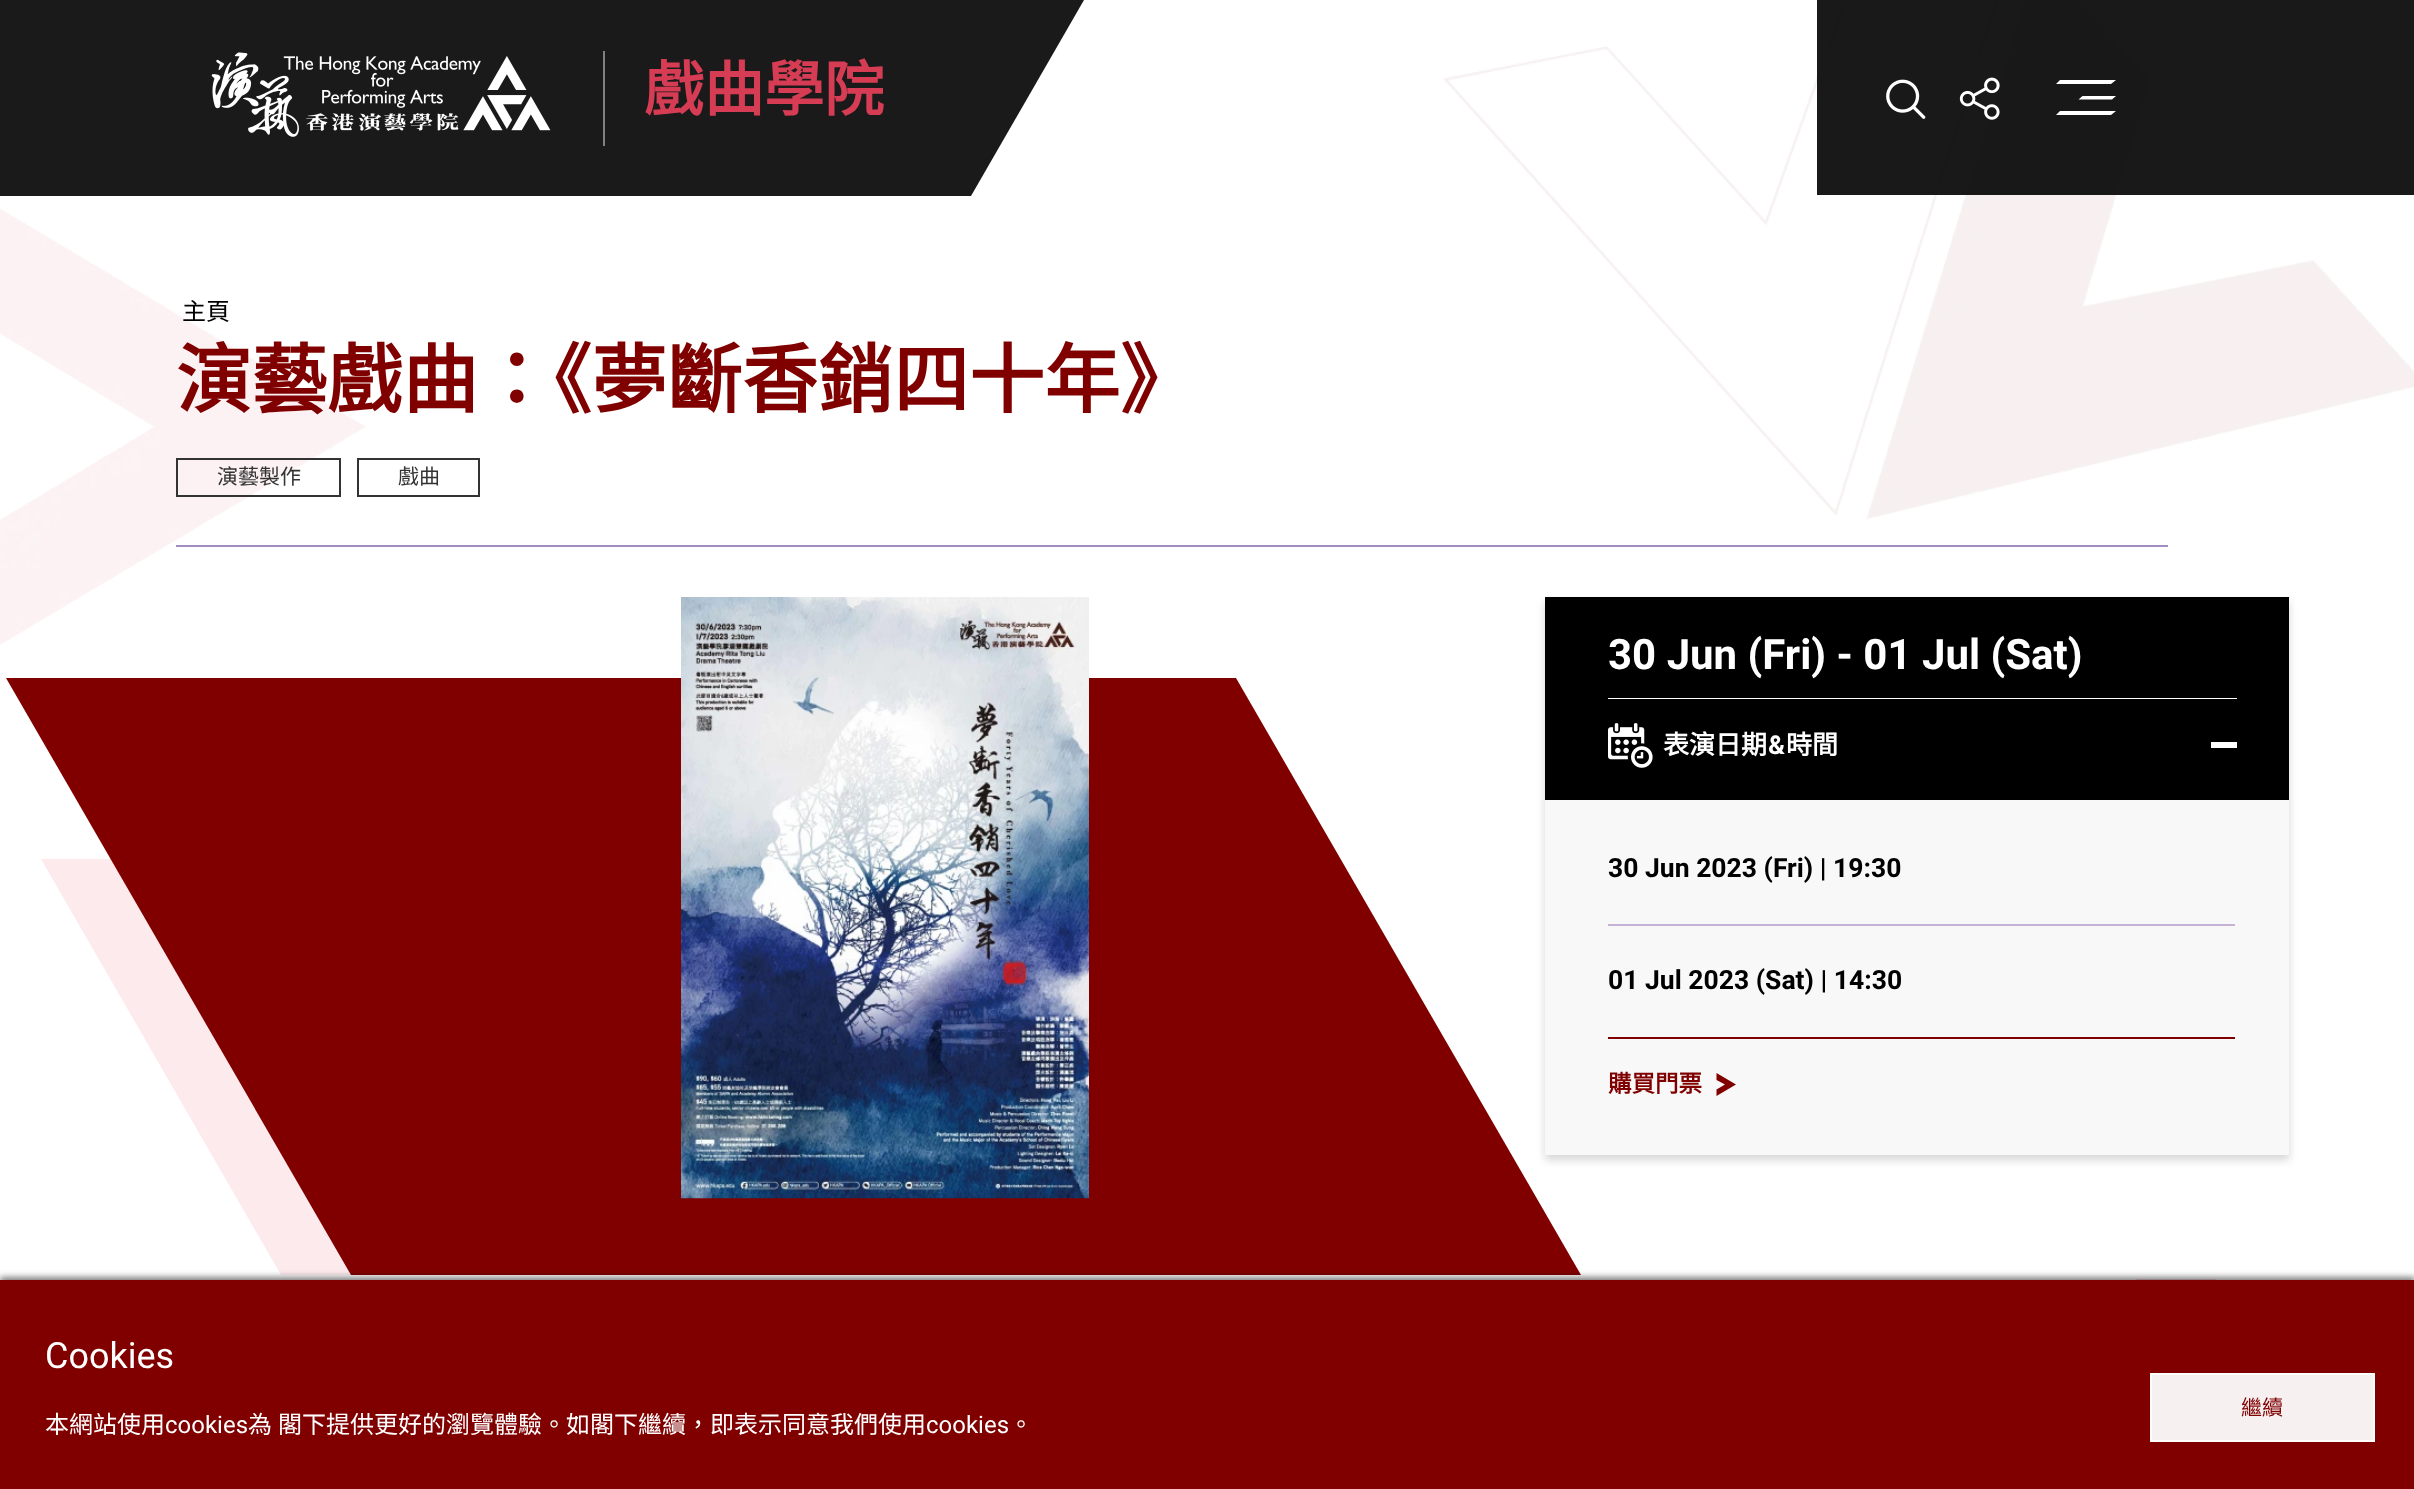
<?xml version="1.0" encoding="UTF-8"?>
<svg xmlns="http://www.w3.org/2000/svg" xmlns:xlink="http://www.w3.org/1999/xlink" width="2414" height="1489">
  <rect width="100%" height="100%" fill="#ffffff" />
  <path d="M -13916 0 h 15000 l -113 196 h -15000 z" fill="#1a1a1a" />
  <image x="211" y="52" width="340" height="85" xlink:href="image1.png" />
  <rect x="603" y="51" width="2" height="95" fill="#808080" />
  <image x="1443" y="0" width="971" height="519" xlink:href="image5.png" />
  <rect x="1817" width="597" height="195" fill="#000000" fill-opacity="0.9" />
  <image x="1886" y="79" width="40" height="40" xlink:href="image2.png" />
  <image x="1959" y="77" width="41" height="43" xlink:href="image3.png" />
  <path d="M 2060 80 l -4 4 h 55 l 5 -4 z m 22.5 16 l -4 3.5 h 33.5 l 4 -3.5 z m -22.5 15 l -4 4 h 55 l 5 -4 z" fill="#ffffff" />
  <path d="M 41 859 h 603 l 241 416 h -604 z" fill="#fdeaed" />
  <path d="M 6 678 h 1230 l 345 597 h -1230 z" fill="#800000" />
  <image x="2136" y="1279" width="81" height="1" xlink:href="image8.png" />
  <rect y="1277" width="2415" height="210" fill="#000000" fill-opacity="0.5" filter="blur(3px)" />
  <rect y="1280" width="2414" height="209" fill="#800000" />
  <rect x="2151" y="1374" width="223" height="67" fill="#f7f0f0" stroke="#fffefe" stroke-width="2" />
  <image x="0" y="209" width="366" height="436" xlink:href="image4.png" />
  <rect x="176" y="545" width="1992" height="2" fill="#a38cbe" />
  <rect x="177" y="459" width="163" height="37" fill="none" stroke="#333333" stroke-width="2" />
  <rect x="358" y="459" width="121" height="37" fill="none" stroke="#333333" stroke-width="2" />
  <image x="681" y="597" width="408" height="602" xlink:href="image6.png" />
  <rect x="1545" y="602" width="744" height="558" fill="#000000" fill-opacity="0.16" filter="blur(4px)" />
  <rect x="1545" y="800" width="744" height="355" fill="#f8f8f8" />
  <rect x="1545" y="597" width="744" height="203" fill="#000000" />
  <rect x="1608" y="698" width="629" height="1" fill="#ffffff" />
  <image x="1608" y="723" width="45" height="45" xlink:href="image7.png" />
  <rect x="2211" y="742" width="26" height="6" fill="#ffffff" />
  <rect x="1608" y="924" width="627" height="2" fill="#c7b3d6" />
  <rect x="1608" y="1037" width="627" height="2" fill="#800000" />
  <path d="M 1736 1084.5 l -19.5 -11.5 v 7 l 8.5 4.5 l -8.5 5 v 6.5 z" fill="#800000" />
  <text x="644" y="111" style="font-family: Noto Sans CJK HK; font-size: 60px; font-weight: bold; fill: #d63d55">戲曲學院</text>
  <text x="45" y="1368" style="font-family: Roboto; font-size: 36px; fill: #ffffff">Cookies</text>
  <text x="45" y="1433" style="font-family: Noto Sans CJK HK; font-size: 24px; fill: #ffffff">本網站使用</text>
  <text x="165" y="1433" style="font-family: Roboto; font-size: 24px; fill: #ffffff">cookies</text>
  <text x="248" y="1433" style="font-family: Noto Sans CJK HK; font-size: 24px; fill: #ffffff">為</text>
  <text x="278" y="1433" style="font-family: Noto Sans CJK HK; font-size: 24px; fill: #ffffff">閣下提供更好的瀏覽體驗。如閣下繼續，即表示同意我們使用</text>
  <text x="926" y="1433" style="font-family: Roboto; font-size: 24px; fill: #ffffff">cookies</text>
  <text x="1009" y="1433" style="font-family: Noto Sans CJK HK; font-size: 24px; fill: #ffffff">。</text>
  <text x="2241" y="1415" style="font-family: Noto Sans CJK HK; font-size: 21px; fill: #800000">繼續</text>
  <text x="182" y="320" style="font-family: Noto Sans CJK HK; font-size: 24px; fill: #000000">主頁</text>
  <text x="176" y="407" style="font-family: Noto Sans CJK HK; font-size: 75.5px; font-weight: bold; fill: #800000">演藝戲曲：《夢斷香銷四十年》</text>
  <text x="217" y="484" style="font-family: Noto Sans CJK HK; font-size: 21px; fill: #333333">演藝製作</text>
  <text x="398" y="484" style="font-family: Noto Sans CJK HK; font-size: 21px; fill: #333333">戲曲</text>
  <text x="1608" y="669" style="font-family: Roboto; font-size: 42px; font-weight: bold; fill: #ffffff">30 Jun (Fri) - 01 Jul (Sat)</text>
  <text x="1663" y="754" style="font-family: Noto Sans CJK HK; font-size: 26px; font-weight: bold; fill: #ffffff">表演日期</text>
  <text x="1768" y="754" style="font-family: Roboto; font-size: 26px; font-weight: bold; fill: #ffffff">&amp;</text>
  <text x="1786" y="754" style="font-family: Noto Sans CJK HK; font-size: 26px; font-weight: bold; fill: #ffffff">時間</text>
  <text x="1608" y="877" style="font-family: Heebo; font-size: 26.5px; font-weight: bold; fill: #000000">30 Jun 2023 (Fri) | 19:30</text>
  <text x="1608" y="989" style="font-family: Heebo; font-size: 26.5px; font-weight: bold; fill: #000000">01 Jul 2023 (Sat) | 14:30</text>
  <text x="1608" y="1092" style="font-family: Noto Sans CJK HK; font-size: 23.5px; font-weight: bold; fill: #800000">購買門票</text>
</svg>
